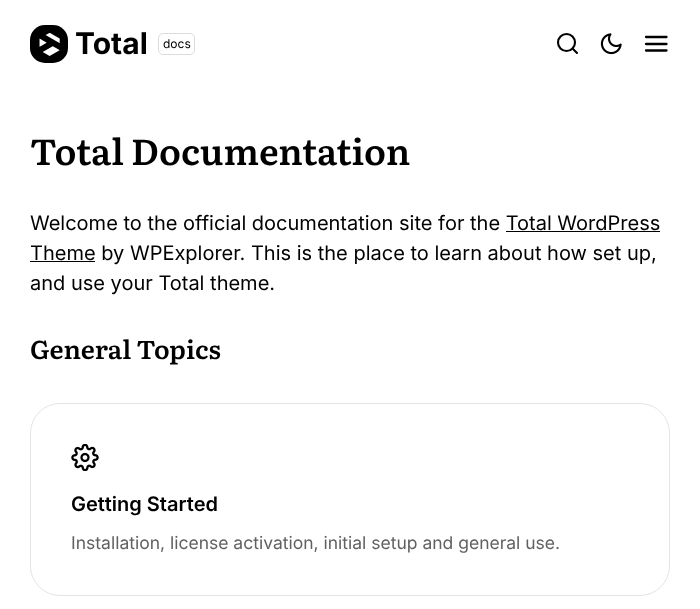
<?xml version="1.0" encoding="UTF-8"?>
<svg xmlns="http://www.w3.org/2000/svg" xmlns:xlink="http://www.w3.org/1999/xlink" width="700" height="609">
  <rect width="100%" height="100%" fill="#ffffff" />
  <rect x="30" y="25" width="38" height="38" rx="15" fill="#000000" />
  <image x="39" y="33" width="21" height="23" xlink:href="image1.png" />
  <rect x="158.5" y="33.5" width="36" height="21" rx="4.5" fill="none" stroke="#dcdcde" />
  <circle cx="566.5" cy="42.5" r="8.5" fill="none" stroke="#000000" stroke-width="2.1" />
  <path d="M 577 53 l -4.5 -4.5" fill="none" stroke="#000000" stroke-width="2.1" stroke-linecap="round" stroke-linejoin="round" />
  <image x="600" y="33" width="22" height="22" xlink:href="image2.png" />
  <path d="M 646 44 h 20.5 m -20.5 -7 h 20.5 m -20.5 13.5 h 20.5" fill="none" stroke="#000000" stroke-width="2.3" stroke-linecap="round" stroke-linejoin="round" />
  <rect x="506" y="231" width="154" height="1" fill="#000000" />
  <rect x="30" y="261" width="65" height="1" fill="#000000" />
  <rect x="30.5" y="403.5" width="639" height="192" rx="29.5" fill="none" stroke="#e4e4e4" />
  <image x="71" y="444" width="28" height="27" xlink:href="image3.png" />
  <text x="75" y="54" style="font-family: Inter; font-size: 30px; font-weight: bold; fill: #000000">Total</text>
  <text x="163" y="48" style="font-family: Inter; font-size: 12px; fill: #000000">docs</text>
  <text x="30" y="165" style="font-family: Literata; font-size: 36.1px; font-weight: 600; fill: #000000">Total Documentation</text>
  <text x="30" y="230" style="font-family: Inter; font-size: 20px; fill: #000000">Welcome to the official documentation site for the Total WordPress</text>
  <text x="30" y="260" style="font-family: Inter; font-size: 20px; fill: #000000">Theme by WPExplorer. This is the place to learn about how set up,</text>
  <text x="30" y="290" style="font-family: Inter; font-size: 20px; fill: #000000">and use your Total theme.</text>
  <text x="30" y="359" style="font-family: Literata; font-size: 25.75px; font-weight: 600; fill: #000000">General Topics</text>
  <text x="71" y="511" style="font-family: Inter; font-size: 20px; font-weight: 600; fill: #000000">Getting Started</text>
  <text x="71" y="549" style="font-family: Inter; font-size: 17.5px; fill: #616161">Installation, license activation, initial setup and general use.</text>
</svg>
